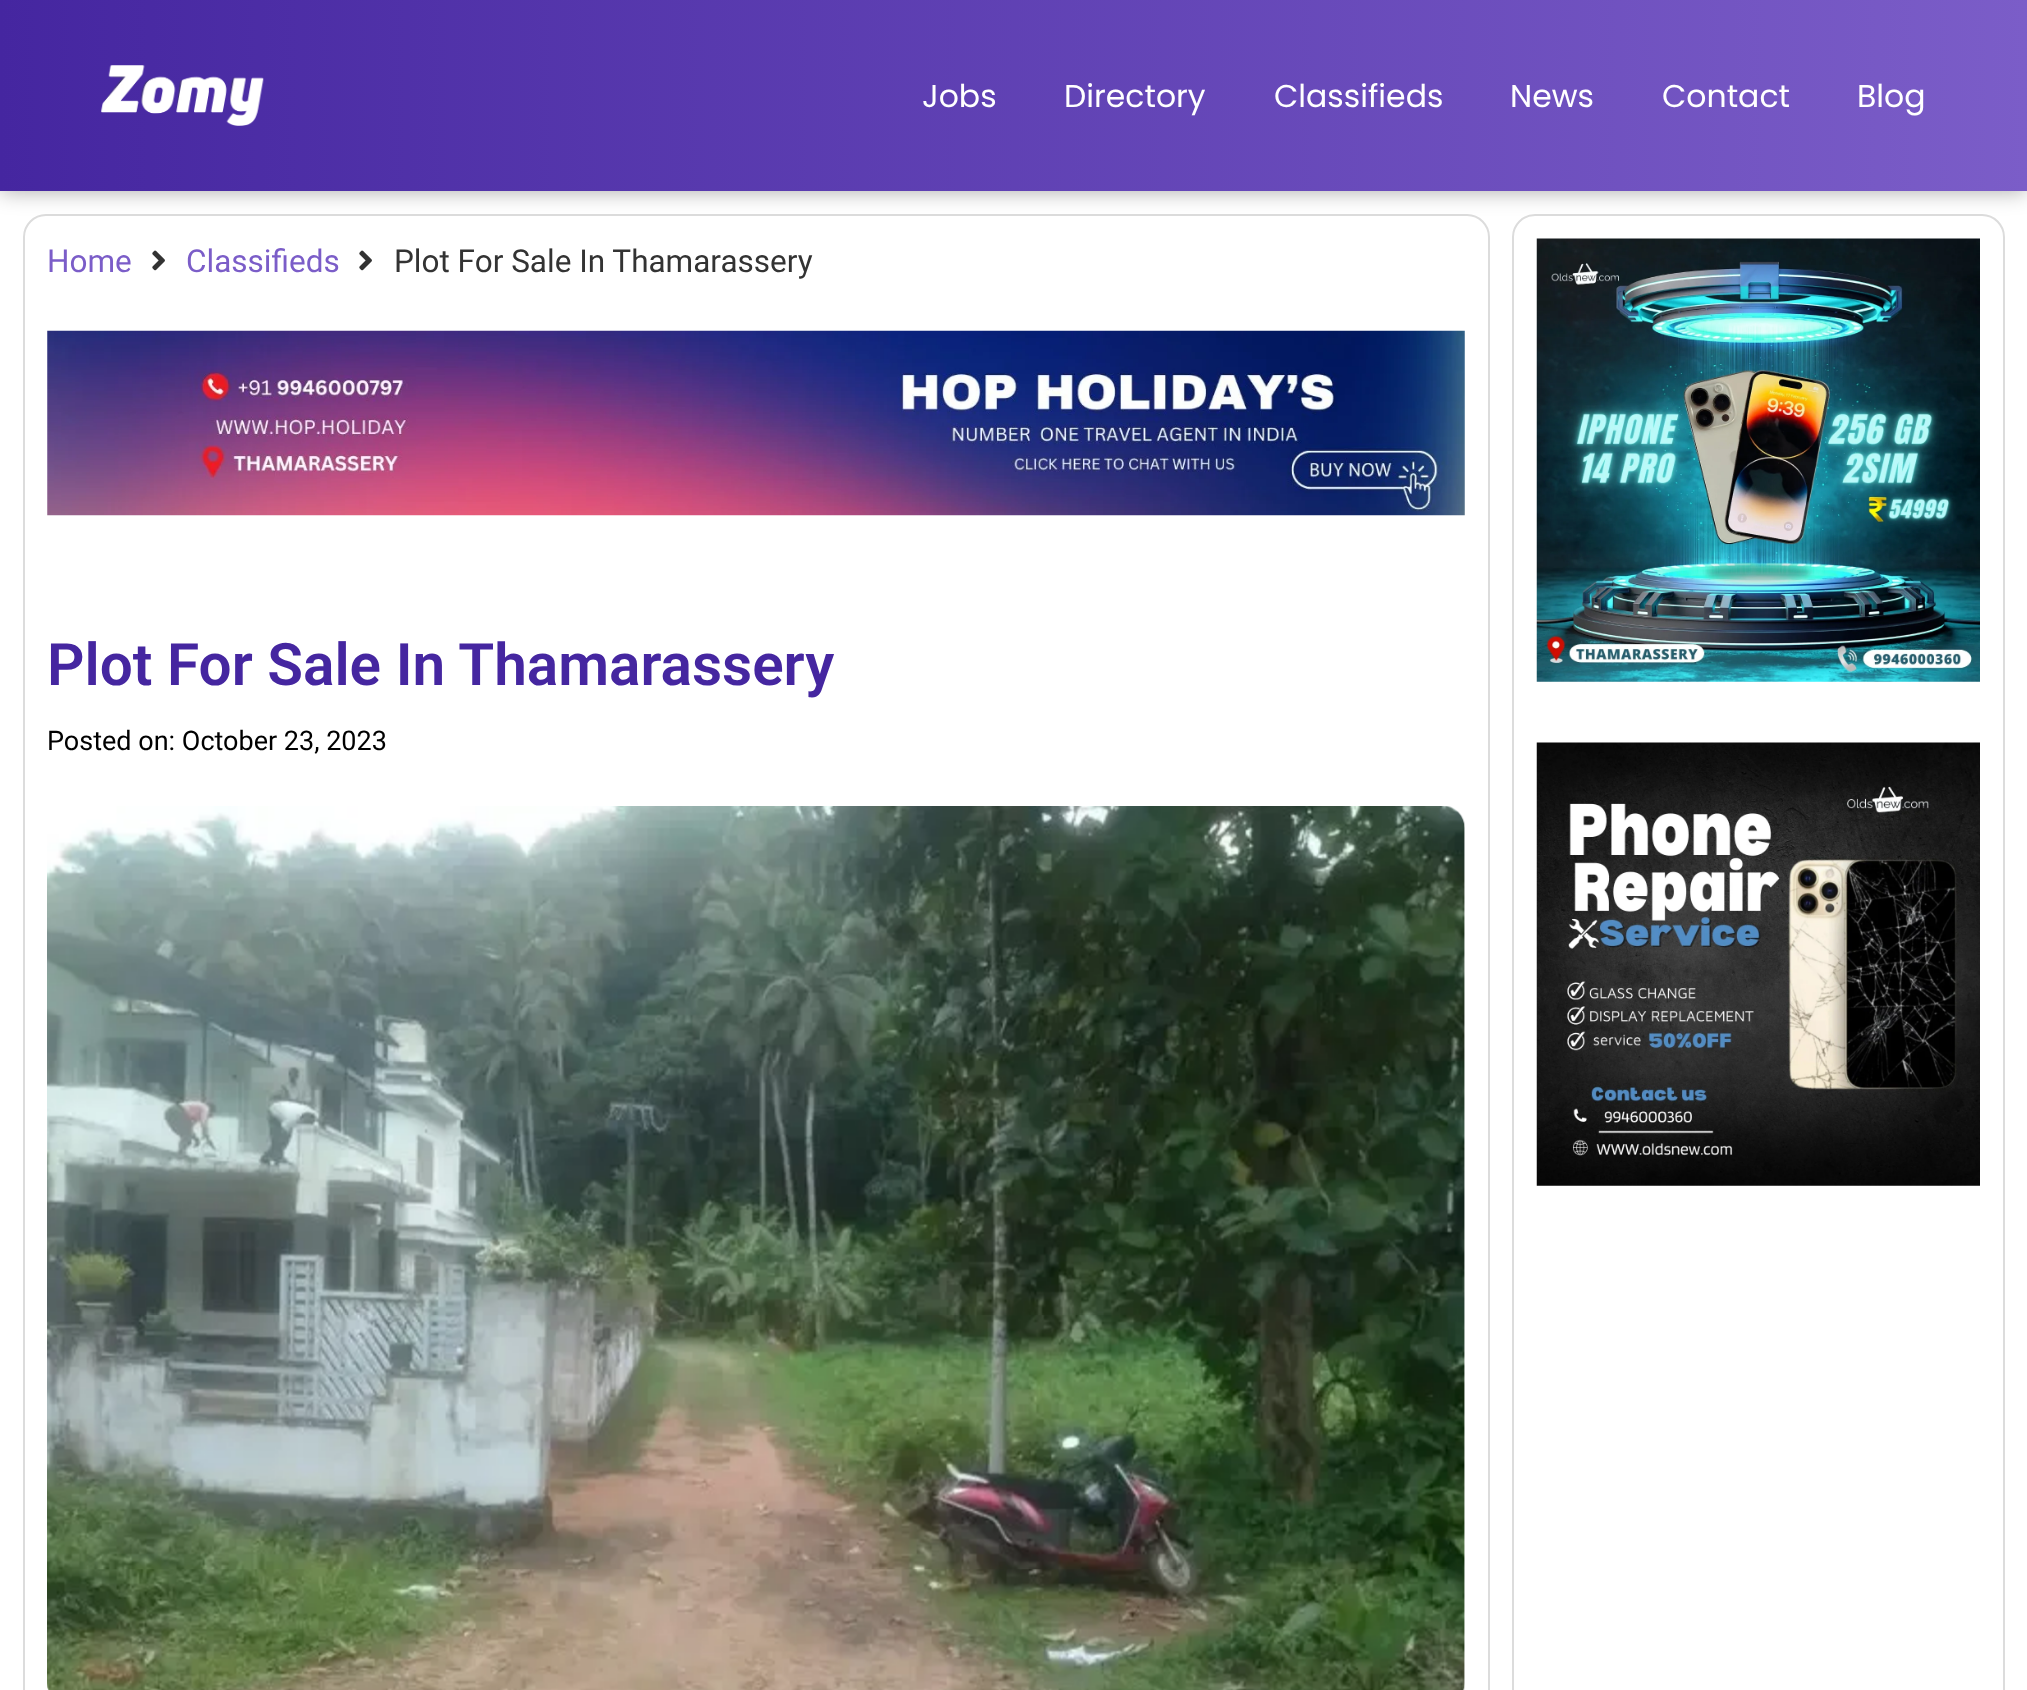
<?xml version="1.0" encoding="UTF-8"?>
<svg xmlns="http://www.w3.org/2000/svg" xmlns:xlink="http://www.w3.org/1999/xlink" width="2027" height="1690">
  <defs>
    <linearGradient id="g1" gradientUnits="userSpaceOnUse" x1="0" y1="96" x2="2027" y2="96"><stop offset="0" stop-color="#4526a0" /><stop offset="1" stop-color="#7b5dc8" /></linearGradient>
  </defs>
  <rect width="100%" height="100%" fill="#ffffff" />
  <rect x="24" y="215" width="1465" height="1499" rx="22" fill="none" stroke="#dcdcdc" stroke-width="2" />
  <rect x="1513" y="215" width="491" height="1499" rx="22" fill="none" stroke="#dcdcdc" stroke-width="2" />
  <rect width="2027" height="191" fill="#000000" fill-opacity="0.34" filter="blur(11px)" />
  <rect width="2027" height="191" fill="url(#g1)" />
  <image x="101" y="65" width="163" height="61" xlink:href="image1.png" />
  <image x="152" y="250" width="13" height="21" xlink:href="image2.png" />
  <image x="359" y="250" width="13" height="21" xlink:href="image2.png" />
  <image x="47" y="330" width="1418" height="186" xlink:href="image3.png" />
  <image x="47" y="806" width="1418" height="884" xlink:href="image4.png" />
  <image x="1536" y="238" width="444" height="444" xlink:href="image5.png" />
  <image x="1536" y="742" width="444" height="444" xlink:href="image6.png" />
  <text x="922" y="107" style="font-family: Poppins; font-size: 31.5px; fill: #ffffff">Jobs</text>
  <text x="1064" y="107" style="font-family: Poppins; font-size: 31.5px; fill: #ffffff">Directory</text>
  <text x="1274" y="107" style="font-family: Poppins; font-size: 31.5px; fill: #ffffff">Classifieds</text>
  <text x="1510" y="107" style="font-family: Poppins; font-size: 31.5px; fill: #ffffff">News</text>
  <text x="1662" y="107" style="font-family: Poppins; font-size: 31.5px; fill: #ffffff">Contact</text>
  <text x="1857" y="107" style="font-family: Poppins; font-size: 31.5px; fill: #ffffff">Blog</text>
  <text x="47" y="272" style="font-family: Roboto; font-size: 31.5px; fill: #7b5dc8">Home</text>
  <text x="186" y="272" style="font-family: Roboto; font-size: 31.5px; fill: #7b5dc8">Classifieds</text>
  <text x="394" y="272" style="font-family: Roboto; font-size: 31.5px; fill: #333333">Plot For Sale In Thamarassery</text>
  <text x="47" y="685" style="font-family: Roboto; font-size: 58.5px; font-weight: 600; fill: #4526a0">Plot For Sale In Thamarassery</text>
  <text x="47" y="750" style="font-family: Roboto; font-size: 27px; fill: #000000">Posted on: October 23, 2023</text>
</svg>
